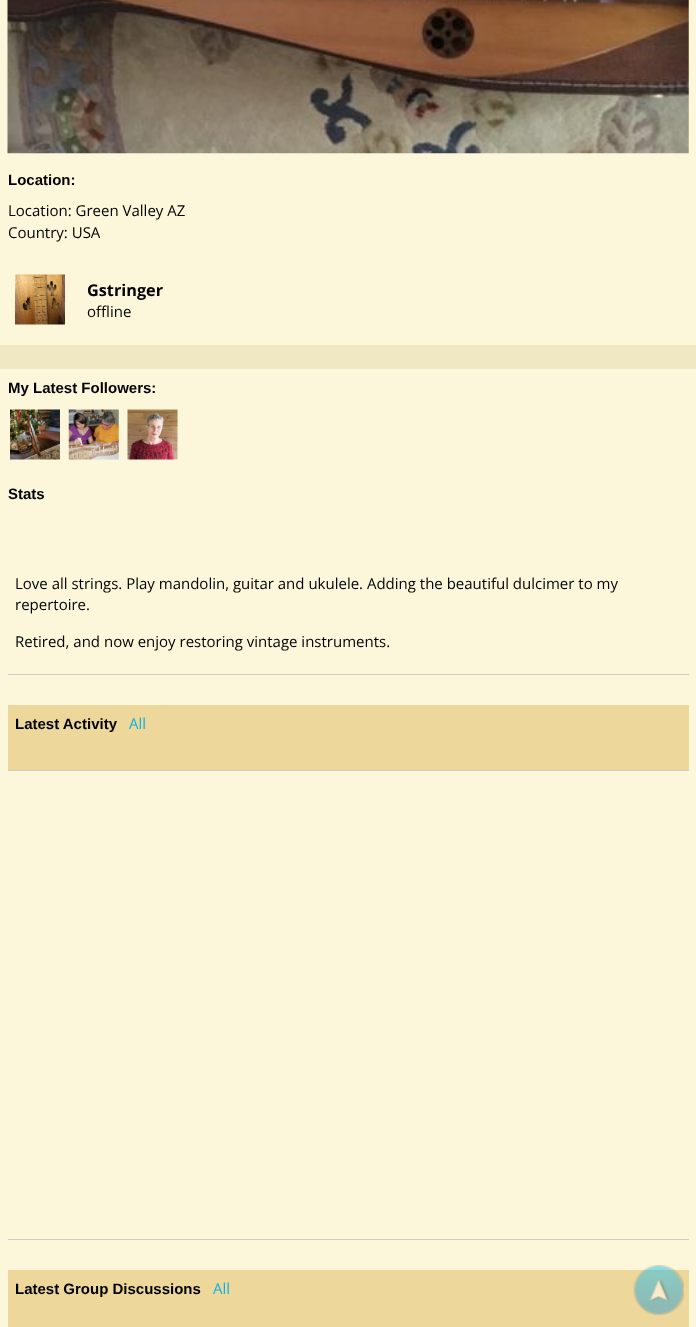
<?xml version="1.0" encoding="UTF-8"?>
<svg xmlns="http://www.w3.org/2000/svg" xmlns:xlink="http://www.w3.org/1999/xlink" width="696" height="1327">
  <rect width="100%" height="100%" fill="#efe8c2" />
  <rect width="696" height="345" fill="#fcf7db" />
  <image x="7" y="0" width="682" height="154" xlink:href="image1.png" />
  <image x="15" y="274" width="50" height="51" xlink:href="image2.png" />
  <rect y="369" width="696" height="958" fill="#fcf7db" />
  <image x="10" y="409" width="50" height="51" xlink:href="image3.png" />
  <image x="68" y="409" width="51" height="51" xlink:href="image4.png" />
  <image x="127" y="409" width="51" height="51" xlink:href="image5.png" />
  <rect x="8" y="674" width="681" height="1" fill="#cccccc" />
  <rect x="8" y="705" width="681" height="65" fill="#edd79a" />
  <rect x="8" y="770" width="681" height="1" fill="#cccccc" />
  <rect x="8" y="1239" width="681" height="1" fill="#cccccc" />
  <rect x="8" y="1270" width="681" height="57" fill="#edd79a" />
  <image x="633" y="1265" width="51" height="50" xlink:href="image6.png" />
  <text x="8" y="185" style="font-family: Liberation Sans; font-size: 15px; font-weight: bold; fill: #000000">Location:</text>
  <text x="8" y="216" style="font-family: Open Sans; font-size: 15px; fill: #000000">Location: Green Valley AZ</text>
  <text x="8" y="238" style="font-family: Open Sans; font-size: 15px; fill: #000000">Country: USA</text>
  <text x="87" y="296" style="font-family: Open Sans; font-size: 16.25px; font-weight: bold; fill: #000000">Gstringer</text>
  <text x="87" y="317" style="font-family: Open Sans; font-size: 15px; fill: #000000">offline</text>
  <text x="8" y="393" style="font-family: Liberation Sans; font-size: 15px; font-weight: bold; fill: #000000">My Latest Followers:</text>
  <text x="8" y="499" style="font-family: Liberation Sans; font-size: 15px; font-weight: bold; fill: #000000">Stats</text>
  <text x="15" y="589" style="font-family: Open Sans; font-size: 15px; fill: #000000">Love all strings. Play mandolin, guitar and ukulele. Adding the beautiful dulcimer to my</text>
  <text x="15" y="610" style="font-family: Open Sans; font-size: 15px; fill: #000000">repertoire.</text>
  <text x="15" y="647" style="font-family: Open Sans; font-size: 15px; fill: #000000">Retired, and now enjoy restoring vintage instruments.</text>
  <text x="15" y="729" style="font-family: Liberation Sans; font-size: 15px; font-weight: bold; fill: #000000">Latest Activity</text>
  <text x="129" y="729" style="font-family: Open Sans; font-size: 15px; fill: #0fb1dd">All</text>
  <text x="15" y="1294" style="font-family: Liberation Sans; font-size: 15px; font-weight: bold; fill: #000000">Latest Group Discussions</text>
  <text x="213" y="1294" style="font-family: Open Sans; font-size: 15px; fill: #0fb1dd">All</text>
</svg>
